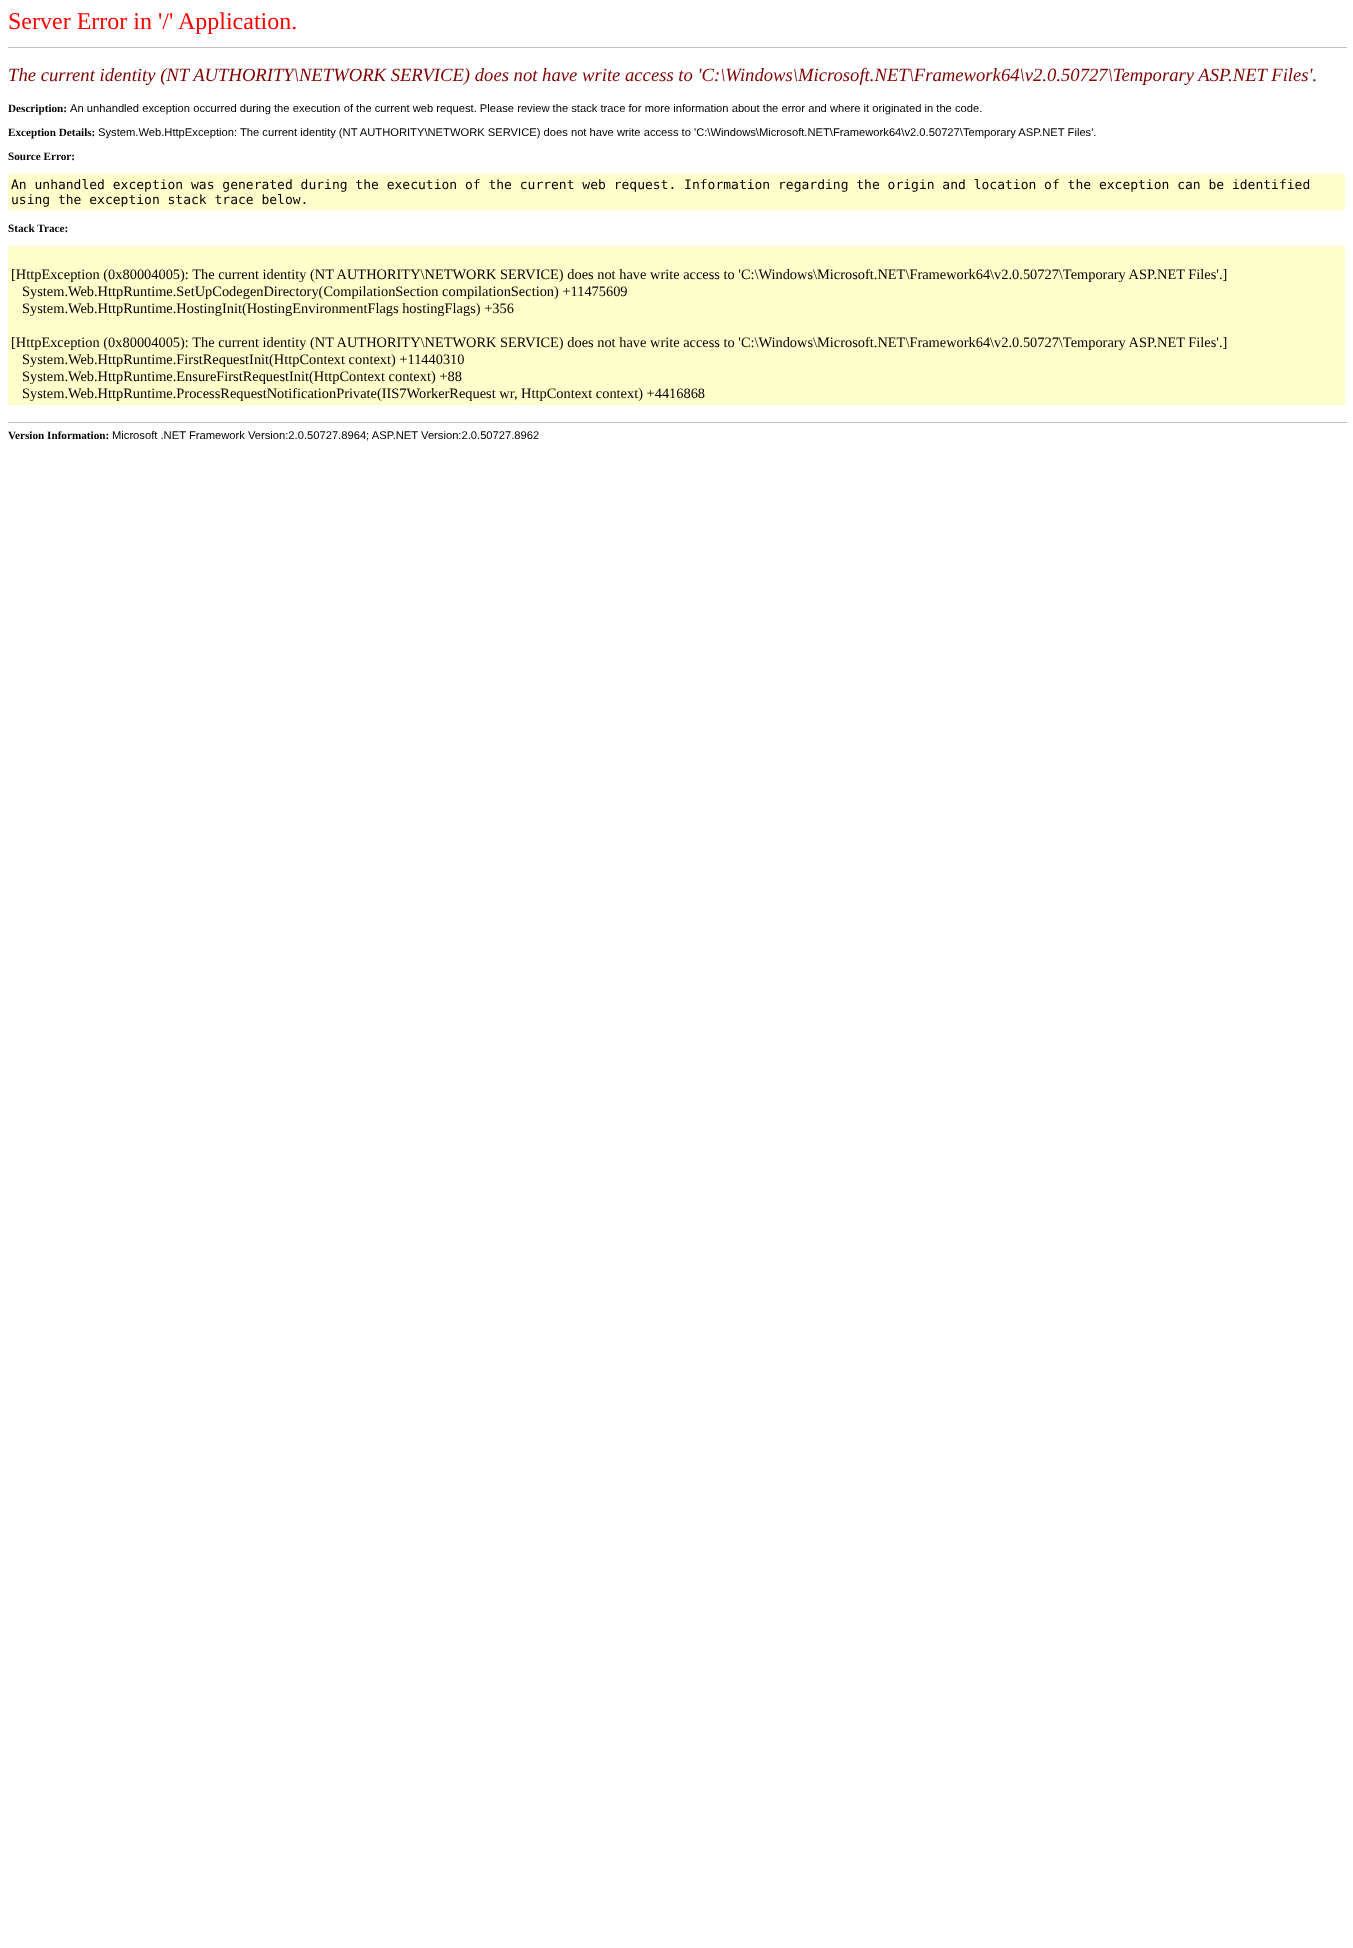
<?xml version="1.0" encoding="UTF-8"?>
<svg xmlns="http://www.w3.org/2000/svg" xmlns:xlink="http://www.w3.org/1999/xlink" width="1353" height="1948">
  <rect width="100%" height="100%" fill="#ffffff" />
  <rect x="8" y="47" width="1339" height="1" fill="#c0c0c0" />
  <rect x="8" y="174" width="1337" height="36" fill="#ffffcc" />
  <rect x="8" y="246" width="1337" height="159" fill="#ffffcc" />
  <rect x="8" y="422" width="1339" height="1" fill="#c0c0c0" />
  <text x="8" y="29" style="font-family: Liberation Serif; font-size: 24px; fill: #ff0000">Server Error in '/' Application.</text>
  <text x="8" y="81" style="font-family: Liberation Serif; font-size: 18.67px; font-style: italic; fill: #800000">The current identity (NT AUTHORITY\NETWORK SERVICE) does not have write access to 'C:\Windows\Microsoft.NET\Framework64\v2.0.50727\Temporary ASP.NET Files'.</text>
  <text x="8" y="112" style="font-family: Liberation Serif; font-size: 11.2px; font-weight: bold; fill: #000000">Description:</text>
  <text x="70" y="112" style="font-family: Liberation Sans; font-size: 11.2px; fill: #000000">An unhandled exception occurred during the execution of the current web request. Please review the stack trace for more information about the error and where it originated in the code.</text>
  <text x="8" y="136" style="font-family: Liberation Serif; font-size: 11.2px; font-weight: bold; fill: #000000">Exception Details:</text>
  <text x="98" y="136" style="font-family: Liberation Sans; font-size: 11.2px; fill: #000000">System.Web.HttpException: The current identity (NT AUTHORITY\NETWORK SERVICE) does not have write access to 'C:\Windows\Microsoft.NET\Framework64\v2.0.50727\Temporary ASP.NET Files'.</text>
  <text x="8" y="160" style="font-family: Liberation Serif; font-size: 11.2px; font-weight: bold; fill: #000000">Source Error:</text>
  <text x="11" y="189" style="font-family: DejaVu Sans Mono; font-size: 13px; fill: #000000">An unhandled exception was generated during the execution of the current web request. Information regarding the origin and location of the exception can be identified</text>
  <text x="11" y="204" style="font-family: DejaVu Sans Mono; font-size: 13px; fill: #000000">using the exception stack trace below.</text>
  <text x="8" y="232" style="font-family: Liberation Serif; font-size: 11.2px; font-weight: bold; fill: #000000">Stack Trace:</text>
  <text x="11" y="279" style="font-family: Liberation Serif; font-size: 14.4px; fill: #000000">[HttpException (0x80004005): The current identity (NT AUTHORITY\NETWORK SERVICE) does not have write access to 'C:\Windows\Microsoft.NET\Framework64\v2.0.50727\Temporary ASP.NET Files'.]</text>
  <text x="22" y="296" style="font-family: Liberation Serif; font-size: 14.4px; fill: #000000">System.Web.HttpRuntime.SetUpCodegenDirectory(CompilationSection compilationSection) +11475609</text>
  <text x="22" y="313" style="font-family: Liberation Serif; font-size: 14.4px; fill: #000000">System.Web.HttpRuntime.HostingInit(HostingEnvironmentFlags hostingFlags) +356</text>
  <text x="11" y="347" style="font-family: Liberation Serif; font-size: 14.4px; fill: #000000">[HttpException (0x80004005): The current identity (NT AUTHORITY\NETWORK SERVICE) does not have write access to 'C:\Windows\Microsoft.NET\Framework64\v2.0.50727\Temporary ASP.NET Files'.]</text>
  <text x="22" y="364" style="font-family: Liberation Serif; font-size: 14.4px; fill: #000000">System.Web.HttpRuntime.FirstRequestInit(HttpContext context) +11440310</text>
  <text x="22" y="381" style="font-family: Liberation Serif; font-size: 14.4px; fill: #000000">System.Web.HttpRuntime.EnsureFirstRequestInit(HttpContext context) +88</text>
  <text x="22" y="398" style="font-family: Liberation Serif; font-size: 14.4px; fill: #000000">System.Web.HttpRuntime.ProcessRequestNotificationPrivate(IIS7WorkerRequest wr, HttpContext context) +4416868</text>
  <text x="8" y="439" style="font-family: Liberation Serif; font-size: 11.2px; font-weight: bold; fill: #000000">Version Information:</text>
  <text x="112" y="439" style="font-family: Liberation Sans; font-size: 11.2px; fill: #000000">Microsoft .NET Framework Version:2.0.50727.8964; ASP.NET Version:2.0.50727.8962</text>
</svg>
